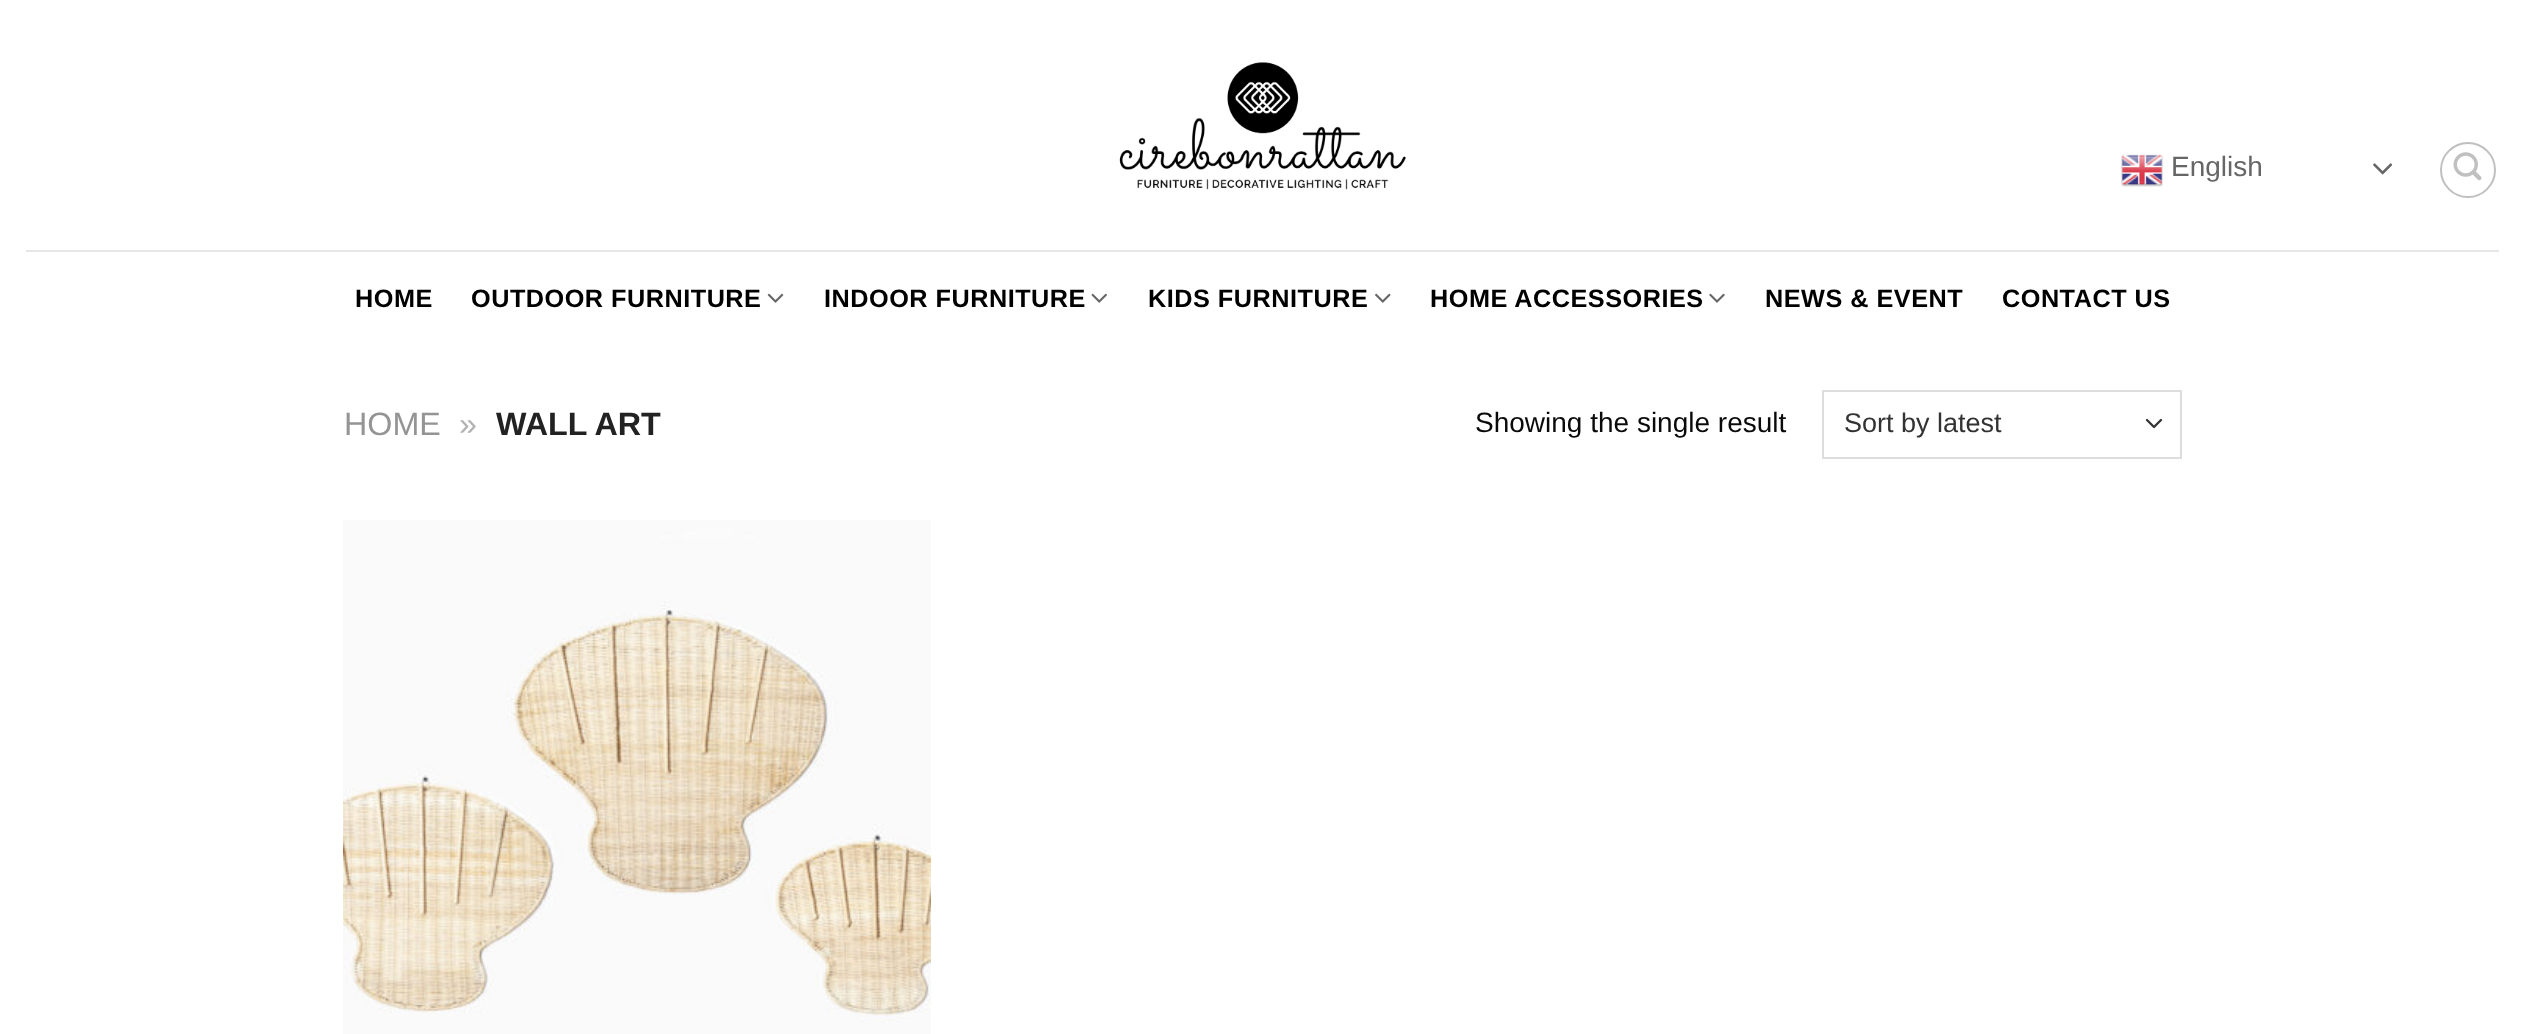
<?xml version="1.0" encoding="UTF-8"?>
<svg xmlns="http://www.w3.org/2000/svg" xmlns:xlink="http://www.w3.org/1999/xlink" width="2524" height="1034">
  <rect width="100%" height="100%" fill="#ffffff" />
  <image x="1119" y="62" width="287" height="128" xlink:href="image1.png" />
  <image x="2121" y="154" width="42" height="33" xlink:href="image2.png" />
  <image x="2373" y="163" width="19" height="12" xlink:href="image3.png" />
  <circle cx="2468" cy="170" r="27" fill="none" stroke="#c0c0c0" stroke-width="2" />
  <image x="2453" y="152" width="29" height="29" xlink:href="image4.png" />
  <rect x="26" y="250" width="2473" height="2" fill="#e7e7e7" />
  <image x="767" y="293" width="17" height="10" xlink:href="image5.png" />
  <image x="1091" y="293" width="16" height="10" xlink:href="image6.png" />
  <image x="1375" y="293" width="16" height="10" xlink:href="image7.png" />
  <image x="1709" y="293" width="16" height="10" xlink:href="image8.png" />
  <path d="M 2147 420 l 7 7 l 7 -7" fill="none" stroke="#333333" stroke-width="2.3" stroke-linecap="round" stroke-linejoin="round" />
  <rect x="1823" y="391" width="358" height="67" fill="none" stroke="#dddddd" stroke-width="2" />
  <image x="343" y="520" width="588" height="514" xlink:href="image9.png" />
  <text x="2171" y="176" style="font-family: Liberation Sans; font-size: 28px; fill: #666666">English</text>
  <text x="355" y="307" style="font-family: Liberation Sans; font-size: 25.25px; font-weight: bold; letter-spacing: 0.5px; fill: #000000">HOME</text>
  <text x="471" y="307" style="font-family: Liberation Sans; font-size: 25.25px; font-weight: bold; letter-spacing: 0.5px; fill: #000000">OUTDOOR FURNITURE</text>
  <text x="824" y="307" style="font-family: Liberation Sans; font-size: 25.25px; font-weight: bold; letter-spacing: 0.5px; fill: #000000">INDOOR FURNITURE</text>
  <text x="1148" y="307" style="font-family: Liberation Sans; font-size: 25.25px; font-weight: bold; letter-spacing: 0.5px; fill: #000000">KIDS FURNITURE</text>
  <text x="1430" y="307" style="font-family: Liberation Sans; font-size: 25.25px; font-weight: bold; letter-spacing: 0.5px; fill: #000000">HOME ACCESSORIES</text>
  <text x="1765" y="307" style="font-family: Liberation Sans; font-size: 25.25px; font-weight: bold; letter-spacing: 0.5px; fill: #000000">NEWS &amp; EVENT</text>
  <text x="2002" y="307" style="font-family: Liberation Sans; font-size: 25.25px; font-weight: bold; letter-spacing: 0.5px; fill: #000000">CONTACT US</text>
  <text x="344" y="435" style="font-family: Liberation Sans; font-size: 32.25px; fill: #949494">HOME</text>
  <text x="459" y="435" style="font-family: Liberation Sans; font-size: 32.25px; fill: #b2b2b2">»</text>
  <text x="496" y="435" style="font-family: Liberation Sans; font-size: 32.25px; font-weight: bold; fill: #222222">WALL ART</text>
  <text x="1475" y="432" style="font-family: Liberation Sans; font-size: 28px; fill: #0a0a0a">Showing the single result</text>
  <text x="1844" y="432" style="font-family: Liberation Sans; font-size: 27px; fill: #333333">Sort by latest</text>
</svg>
